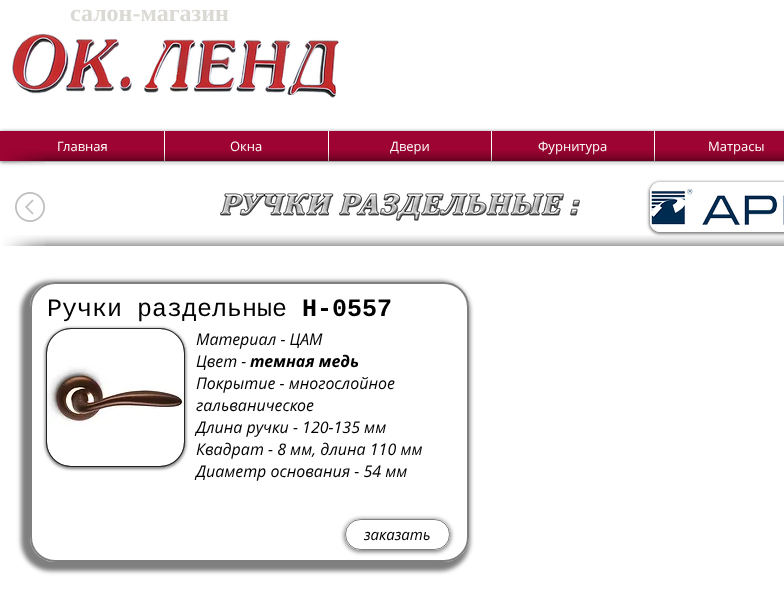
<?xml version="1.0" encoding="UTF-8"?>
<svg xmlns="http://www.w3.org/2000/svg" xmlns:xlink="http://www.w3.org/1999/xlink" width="784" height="608">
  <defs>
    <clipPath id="clip1"><path d="M 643 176 h 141 v 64 h -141 z m 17 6 h 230 c 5.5 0 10 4.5 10 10 v 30 c 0 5.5 -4.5 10 -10 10 h -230 c -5.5 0 -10 -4.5 -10 -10 v -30 c 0 -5.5 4.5 -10 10 -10 z" clip-rule="evenodd" /></clipPath>
    <clipPath id="clip2"><path d="M 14 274 h 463 v 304 h -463 z m 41 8 h 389 c 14 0 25 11 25 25 v 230 c 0 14 -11 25 -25 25 h -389 c -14 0 -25 -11 -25 -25 v -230 c 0 -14 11 -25 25 -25 z" clip-rule="evenodd" /></clipPath>
    <clipPath id="clip3"><path d="M 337 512 h 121 v 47 h -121 z m 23.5 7 h 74 c 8.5 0 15.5 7 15.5 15.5 c 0 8.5 -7 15.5 -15.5 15.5 h -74 c -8.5 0 -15.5 -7 -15.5 -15.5 c 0 -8.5 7 -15.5 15.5 -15.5 z" clip-rule="evenodd" /></clipPath>
  </defs>
  <rect width="100%" height="100%" fill="#ffffff" />
  <image x="11" y="33" width="328" height="65" xlink:href="image1.png" />
  <rect y="132" width="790" height="30" fill="#000000" fill-opacity="0.6" filter="blur(2px)" />
  <rect y="131" width="784" height="30" fill="#9e0433" />
  <rect x="164" y="131" width="1" height="30" fill="#ffffff" />
  <rect x="328" y="131" width="1" height="30" fill="#ffffff" />
  <rect x="491" y="131" width="1" height="30" fill="#ffffff" />
  <rect x="654" y="131" width="1" height="30" fill="#ffffff" />
  <image x="4" y="150" width="41" height="14" xlink:href="image3.png" />
  <image x="15" y="192" width="30" height="30" xlink:href="image4.png" />
  <image x="220" y="193" width="360" height="28" xlink:href="image5.png" />
  <g clip-path="url(#clip1)">
    <rect x="649" y="182" width="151" height="52" rx="11" fill="#000000" fill-opacity="0.5" filter="blur(1.5px)" />
  </g>
  <rect x="650" y="182" width="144" height="50" rx="10" fill="#ffffff" fill-opacity="0.5" />
  <rect x="650.5" y="182.5" width="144" height="49" rx="9.5" fill="none" stroke="#ffffff" stroke-opacity="0.5" />
  <image x="651" y="189" width="133" height="36" xlink:href="image6.png" />
  <image x="45" y="235" width="739" height="11" xlink:href="image7.png" />
  <image x="3" y="235" width="42" height="11" xlink:href="image8.png" />
  <g clip-path="url(#clip2)">
    <rect x="21" y="281" width="449" height="290" rx="30" fill="#000000" fill-opacity="0.5" filter="blur(2px)" />
  </g>
  <rect x="30" y="282" width="439" height="280" rx="25" fill="#ffffff" fill-opacity="0.5" />
  <rect x="31" y="283" width="437" height="278" rx="24" fill="none" stroke="#000000" stroke-opacity="0.5" stroke-width="2" />
  <rect x="45" y="328" width="141" height="141" rx="26" fill="#000000" fill-opacity="0.5" filter="blur(1.5px)" />
  <rect x="46" y="328" width="139" height="139" rx="25" fill="#000000" fill-opacity="0.5" />
  <rect x="46.5" y="328.5" width="138" height="138" rx="24.5" fill="none" stroke="#000000" stroke-opacity="0.5" />
  <image x="47" y="329" width="137" height="137" xlink:href="image9.png" />
  <g clip-path="url(#clip3)">
    <rect x="344" y="519" width="107" height="33" rx="16.5" fill="#000000" fill-opacity="0.5" filter="blur(2px)" />
  </g>
  <rect x="345" y="519" width="105" height="31" rx="15.5" fill="#ffffff" fill-opacity="0.5" />
  <rect x="345.5" y="519.5" width="104" height="30" rx="15" fill="none" stroke="#000000" stroke-opacity="0.5" />
  <text x="70" y="21" style="font-family: Liberation Serif; font-size: 24px; font-weight: bold; fill: #dbd9d3">салон-магазин</text>
  <text x="57" y="151" style="font-family: Open Sans; font-size: 13px; fill: #ffffff">Главная</text>
  <text x="230" y="151" style="font-family: Open Sans; font-size: 13px; fill: #ffffff">Окна</text>
  <text x="390" y="151" style="font-family: Open Sans; font-size: 13px; fill: #ffffff">Двери</text>
  <text x="538" y="151" style="font-family: Open Sans; font-size: 13px; fill: #ffffff">Фурнитура</text>
  <text x="708" y="151" style="font-family: Open Sans; font-size: 13px; fill: #ffffff">Матрасы</text>
  <image x="45" y="150" width="739" height="15" xlink:href="image2.png" />
  <text x="47" y="316" style="font-family: Liberation Mono; font-size: 25px; fill: #000000">Ручки раздельные</text>
  <text x="302" y="316" style="font-family: Liberation Mono; font-size: 25px; font-weight: bold; fill: #000000">H-0557</text>
  <text x="196" y="345" style="font-family: Open Sans; font-size: 16px; font-style: italic; fill: #000000">Материал - ЦАМ</text>
  <text x="196" y="367" style="font-family: Open Sans; font-size: 16px; font-style: italic; fill: #000000">Цвет -</text>
  <text x="250" y="367" style="font-family: Open Sans; font-size: 16px; font-weight: bold; font-style: italic; fill: #000000">темная медь</text>
  <text x="196" y="389" style="font-family: Open Sans; font-size: 16px; font-style: italic; fill: #000000">Покрытие - многослойное</text>
  <text x="196" y="411" style="font-family: Open Sans; font-size: 16px; font-style: italic; fill: #000000">гальваническое</text>
  <text x="196" y="433" style="font-family: Open Sans; font-size: 16px; font-style: italic; fill: #000000">Длина ручки - 120-135 мм</text>
  <text x="196" y="455" style="font-family: Open Sans; font-size: 16px; font-style: italic; fill: #000000">Квадрат - 8 мм, длина 110 мм</text>
  <text x="196" y="477" style="font-family: Open Sans; font-size: 16px; font-style: italic; fill: #000000">Диаметр основания - 54 мм</text>
  <text x="364" y="540" style="font-family: Open Sans; font-size: 15px; font-style: italic; fill: #000000">заказать</text>
</svg>
